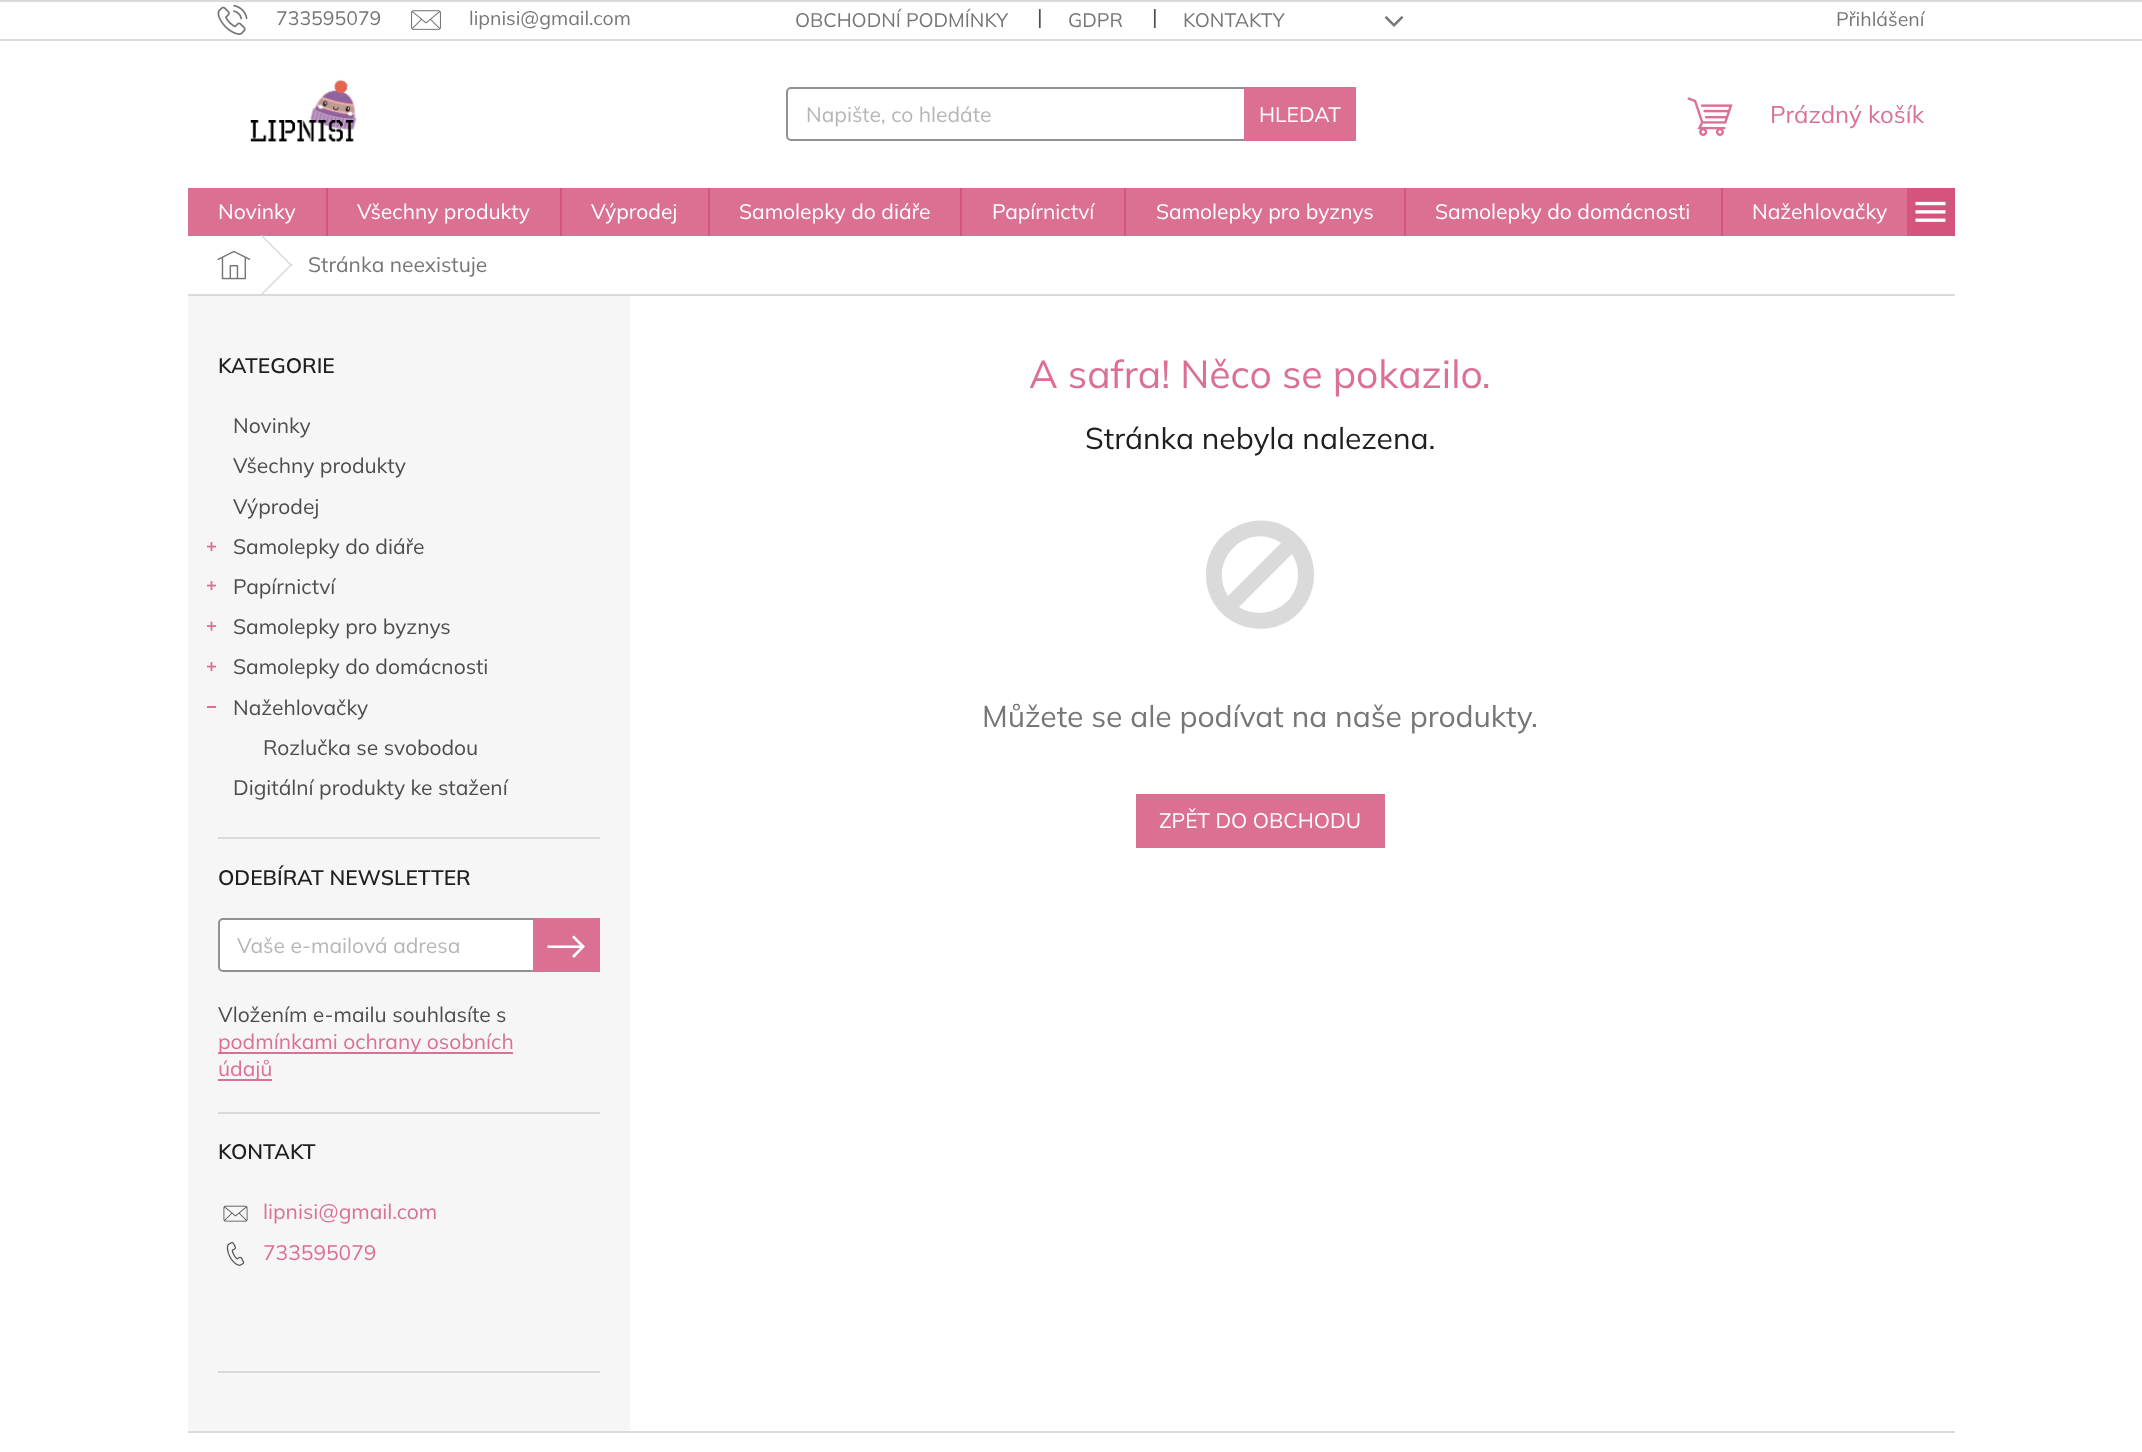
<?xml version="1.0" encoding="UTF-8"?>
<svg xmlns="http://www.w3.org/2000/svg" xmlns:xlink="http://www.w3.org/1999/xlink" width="2142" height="1452">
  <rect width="100%" height="100%" fill="#ffffff" />
  <rect width="2142" height="2" fill="#dadada" />
  <rect y="39" width="2142" height="2" fill="#dadada" />
  <image x="217" y="4" width="31" height="31" xlink:href="image1.png" />
  <image x="411" y="10" width="30" height="20" xlink:href="image2.png" />
  <path d="M 1384.5 17.5 l 2 -1.5 l 7.5 7.5 l 7.5 -7.5 l 2 1.5 l -9.5 9.5 z" fill="#767676" />
  <image x="249" y="79" width="109" height="63" xlink:href="image3.png" />
  <rect x="787" y="88" width="568" height="52" rx="4" fill="none" stroke="#919191" stroke-width="2" />
  <rect x="1244" y="87" width="112" height="54" fill="#db7093" />
  <image x="1687" y="97" width="46" height="39" xlink:href="image4.png" />
  <rect x="188" y="188" width="1719" height="48" fill="#db7093" />
  <rect x="326" y="188" width="2" height="48" fill="#d4547e" />
  <rect x="560" y="188" width="2" height="48" fill="#d4547e" />
  <rect x="708" y="188" width="2" height="48" fill="#d4547e" />
  <rect x="960" y="188" width="2" height="48" fill="#d4547e" />
  <rect x="1124" y="188" width="2" height="48" fill="#d4547e" />
  <rect x="1404" y="188" width="2" height="48" fill="#d4547e" />
  <rect x="1721" y="188" width="2" height="48" fill="#d4547e" />
  <rect x="1907" y="188" width="48" height="48" fill="#d4547e" />
  <image x="1915" y="201" width="31" height="21" xlink:href="image5.png" />
  <rect x="188" y="294" width="1767" height="2" fill="#dadada" />
  <image x="217" y="250" width="34" height="30" xlink:href="image6.png" />
  <path d="M 261 236 l 1 -1 l 30.5 30.5 l -1 1 z" fill="#dadada" />
  <path d="M 291.5 263.5 l 1 1 l -30.5 30.5 l -1 -1 z" fill="#dadada" />
  <rect x="188" y="296" width="442" height="1135" fill="#f6f6f6" />
  <rect x="218" y="837" width="382" height="2" fill="#dadada" />
  <image x="207" y="542" width="9" height="10" xlink:href="image7.png" />
  <image x="207" y="581" width="9" height="10" xlink:href="image7.png" />
  <image x="207" y="621" width="9" height="10" xlink:href="image8.png" />
  <image x="207" y="662" width="9" height="10" xlink:href="image7.png" />
  <rect x="207" y="706" width="9" height="2" fill="#db7093" />
  <rect x="218" y="1112" width="382" height="2" fill="#dadada" />
  <rect x="219" y="919" width="380" height="52" rx="4" fill="#ffffff" stroke="#919191" stroke-width="2" />
  <rect x="533" y="918" width="67" height="54" fill="#db7093" />
  <path d="M 574 935.5 l 11 11 l -11 11.5 l -2 -2 l 8 -8 h -32.5 v -2.5 h 32.5 l -8 -8.5 z" fill="#ffffff" />
  <rect x="218" y="1052" width="295" height="2" fill="#db7093" />
  <rect x="218" y="1079" width="54" height="2" fill="#db7093" />
  <rect x="218" y="1371" width="382" height="2" fill="#dadada" />
  <image x="223" y="1205" width="25" height="17" xlink:href="image9.png" />
  <image x="226" y="1242" width="19" height="24" xlink:href="image10.png" />
  <path d="M 1298 575 c 0 -8 -2 -15 -6 -21 l -53 53 c 25 16 59 -2 59 -32 z m -70 21 l 53 -53 c -34 -23 -75 18 -53 53 z m 86 -21 c 0 10 -3 21 -9 30 c -30 44 -99 23 -99 -30 c 0 -53 69 -75 99 -31 c 6 9 9 20 9 31 z" fill="#dadada" />
  <rect x="1136" y="794" width="249" height="54" fill="#db7093" />
  <rect x="188" y="1431" width="1767" height="2" fill="#dadada" />
  <text x="276" y="25" style="font-family: Mulish; font-size: 19.5px; fill: #767676">733595079</text>
  <text x="469" y="25" style="font-family: Mulish; font-size: 19.5px; fill: #767676">lipnisi@gmail.com</text>
  <text x="795" y="27" style="font-family: Mulish; font-size: 19.5px; fill: #767676">OBCHODNÍ PODMÍNKY</text>
  <text x="1037" y="24" style="font-family: Mulish; font-size: 21px; fill: #4d4d4d">|</text>
  <text x="1068" y="27" style="font-family: Mulish; font-size: 19.5px; fill: #767676">GDPR</text>
  <text x="1152" y="24" style="font-family: Mulish; font-size: 21px; fill: #4d4d4d">|</text>
  <text x="1183" y="27" style="font-family: Mulish; font-size: 19.5px; fill: #767676">KONTAKTY</text>
  <text x="1836" y="26" style="font-family: Mulish; font-size: 19.5px; fill: #767676">Přihlášení</text>
  <text x="806" y="122" style="font-family: Mulish; font-size: 21px; fill: #b6b6b6">Napište, co hledáte</text>
  <text x="1259" y="122" style="font-family: Mulish; font-size: 21px; fill: #ffffff">HLEDAT</text>
  <text x="1770" y="123" style="font-family: Mulish; font-size: 24px; fill: #db7093">Prázdný košík</text>
  <text x="218" y="219" style="font-family: Mulish; font-size: 21px; fill: #ffffff">Novinky</text>
  <text x="357" y="219" style="font-family: Mulish; font-size: 21px; fill: #ffffff">Všechny produkty</text>
  <text x="591" y="219" style="font-family: Mulish; font-size: 21px; fill: #ffffff">Výprodej</text>
  <text x="739" y="219" style="font-family: Mulish; font-size: 21px; fill: #ffffff">Samolepky do diáře</text>
  <text x="992" y="219" style="font-family: Mulish; font-size: 21px; fill: #ffffff">Papírnictví</text>
  <text x="1156" y="219" style="font-family: Mulish; font-size: 21px; fill: #ffffff">Samolepky pro byznys</text>
  <text x="1435" y="219" style="font-family: Mulish; font-size: 21px; fill: #ffffff">Samolepky do domácnosti</text>
  <text x="1752" y="219" style="font-family: Mulish; font-size: 21px; fill: #ffffff">Nažehlovačky</text>
  <text x="308" y="272" style="font-family: Mulish; font-size: 21px; fill: #767676">Stránka neexistuje</text>
  <text x="218" y="373" style="font-family: Mulish; font-size: 21px; font-weight: 600; fill: #1f1f1f">KATEGORIE</text>
  <text x="233" y="433" style="font-family: Mulish; font-size: 21px; fill: #4d4d4d">Novinky</text>
  <text x="233" y="473" style="font-family: Mulish; font-size: 21px; fill: #4d4d4d">Všechny produkty</text>
  <text x="233" y="514" style="font-family: Mulish; font-size: 21px; fill: #4d4d4d">Výprodej</text>
  <text x="233" y="554" style="font-family: Mulish; font-size: 21px; fill: #4d4d4d">Samolepky do diáře</text>
  <text x="233" y="594" style="font-family: Mulish; font-size: 21px; fill: #4d4d4d">Papírnictví</text>
  <text x="233" y="634" style="font-family: Mulish; font-size: 21px; fill: #4d4d4d">Samolepky pro byznys</text>
  <text x="233" y="674" style="font-family: Mulish; font-size: 21px; fill: #4d4d4d">Samolepky do domácnosti</text>
  <text x="233" y="715" style="font-family: Mulish; font-size: 21px; fill: #4d4d4d">Nažehlovačky</text>
  <text x="263" y="755" style="font-family: Mulish; font-size: 21px; fill: #4d4d4d">Rozlučka se svobodou</text>
  <text x="233" y="795" style="font-family: Mulish; font-size: 21px; fill: #4d4d4d">Digitální produkty ke stažení</text>
  <text x="218" y="885" style="font-family: Mulish; font-size: 21px; font-weight: 600; fill: #1f1f1f">ODEBÍRAT NEWSLETTER</text>
  <text x="237" y="953" style="font-family: Mulish; font-size: 21px; fill: #b6b6b6">Vaše e-mailová adresa</text>
  <text x="218" y="1022" style="font-family: Mulish; font-size: 21px; fill: #4d4d4d">Vložením e-mailu souhlasíte s</text>
  <text x="218" y="1049" style="font-family: Mulish; font-size: 21px; fill: #db7093">podmínkami ochrany osobních</text>
  <text x="218" y="1076" style="font-family: Mulish; font-size: 21px; fill: #db7093">údajů</text>
  <text x="218" y="1159" style="font-family: Mulish; font-size: 21px; font-weight: 600; fill: #1f1f1f">KONTAKT</text>
  <text x="263" y="1219" style="font-family: Mulish; font-size: 21px; fill: #db7093">lipnisi@gmail.com</text>
  <text x="263" y="1260" style="font-family: Mulish; font-size: 21px; fill: #db7093">733595079</text>
  <text x="1029" y="388" style="font-family: Mulish; font-size: 39px; fill: #db7093">A safra! Něco se pokazilo.</text>
  <text x="1085" y="449" style="font-family: Mulish; font-size: 30px; fill: #1f1f1f">Stránka nebyla nalezena.</text>
  <text x="982" y="727" style="font-family: Mulish; font-size: 30px; fill: #767676">Můžete se ale podívat na naše produkty.</text>
  <text x="1159" y="828" style="font-family: Mulish; font-size: 21px; fill: #ffffff">ZPĚT DO OBCHODU</text>
</svg>
